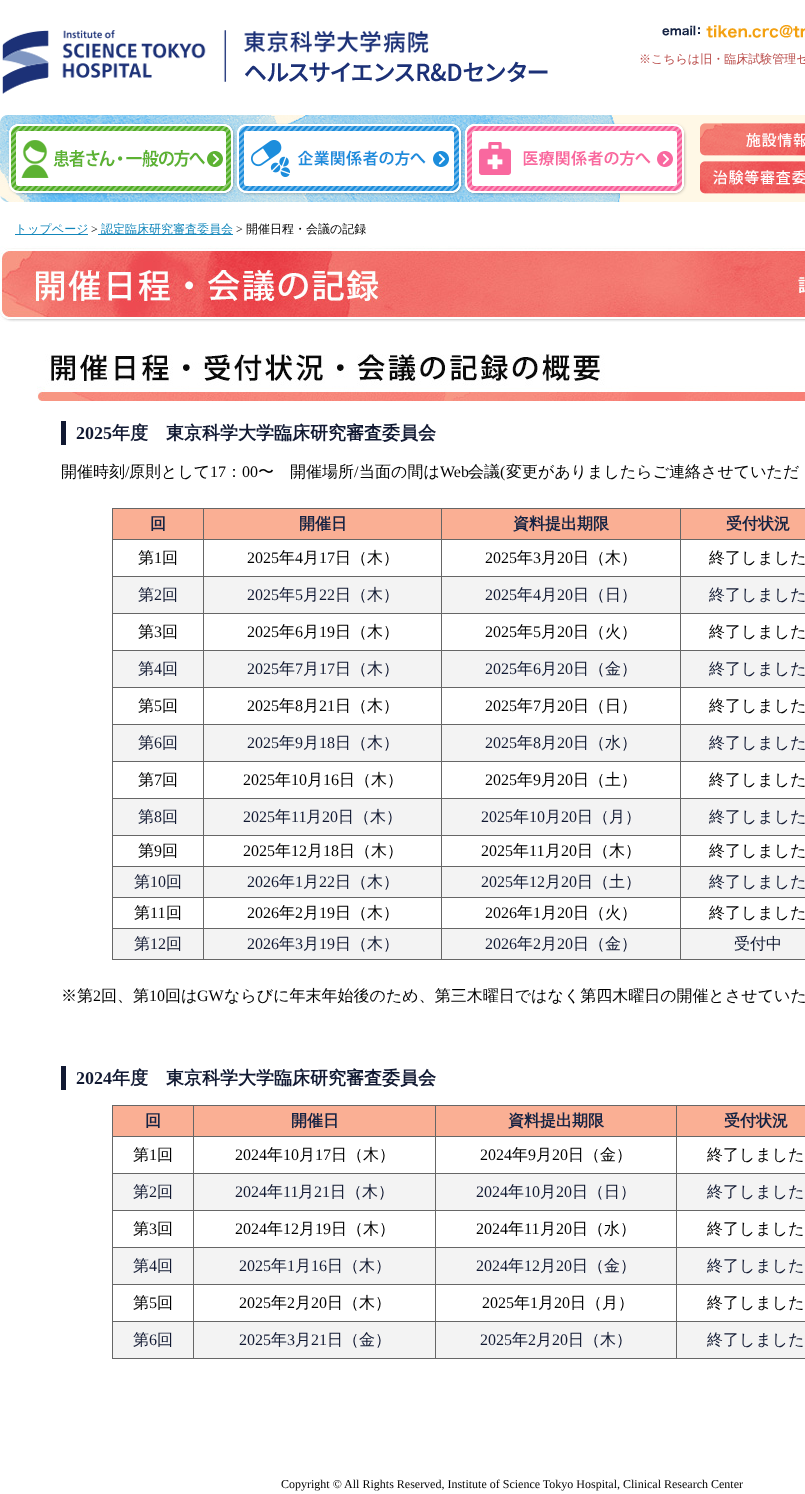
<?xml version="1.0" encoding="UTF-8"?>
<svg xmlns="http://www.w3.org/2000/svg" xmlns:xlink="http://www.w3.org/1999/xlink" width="805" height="1494">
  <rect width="100%" height="100%" fill="#ffffff" />
  <image x="2" y="30" width="546" height="64" xlink:href="image1.png" />
  <image x="662" y="25" width="143" height="15" xlink:href="image2.png" />
  <image x="0" y="115" width="805" height="87" xlink:href="image3.png" />
  <image x="8" y="123" width="228" height="73" xlink:href="image4.png" />
  <image x="236" y="123" width="228" height="73" xlink:href="image5.png" />
  <image x="464" y="123" width="223" height="73" xlink:href="image6.png" />
  <image x="700" y="123" width="105" height="33" xlink:href="image7.png" />
  <image x="700" y="161" width="105" height="33" xlink:href="image8.png" />
  <rect x="15" y="234" width="73" height="1" fill="#1387bb" />
  <rect x="98" y="234" width="135" height="1" fill="#1387bb" />
  <image x="0" y="246" width="805" height="76" xlink:href="image9.png" />
  <image x="37" y="354" width="768" height="47" xlink:href="image10.png" />
  <rect x="61" y="421" width="5" height="24" fill="#111932" />
  <rect x="112" y="508" width="693" height="1" fill="#666666" />
  <rect x="113" y="509" width="90" height="30" fill="#faaf94" />
  <rect x="112" y="539" width="693" height="1" fill="#666666" />
  <rect x="112" y="509" width="1" height="31" fill="#666666" />
  <rect x="204" y="509" width="237" height="30" fill="#faaf94" />
  <rect x="203" y="509" width="1" height="31" fill="#666666" />
  <rect x="442" y="509" width="238" height="30" fill="#faaf94" />
  <rect x="441" y="509" width="1" height="31" fill="#666666" />
  <rect x="681" y="509" width="124" height="30" fill="#faaf94" />
  <rect x="680" y="509" width="1" height="31" fill="#666666" />
  <rect x="112" y="576" width="693" height="1" fill="#666666" />
  <rect x="112" y="540" width="1" height="37" fill="#666666" />
  <rect x="203" y="540" width="1" height="37" fill="#666666" />
  <rect x="441" y="540" width="1" height="37" fill="#666666" />
  <rect x="680" y="540" width="1" height="37" fill="#666666" />
  <rect x="113" y="577" width="692" height="36" fill="#f3f3f3" />
  <rect x="112" y="613" width="693" height="1" fill="#666666" />
  <rect x="112" y="577" width="1" height="37" fill="#666666" />
  <rect x="203" y="577" width="1" height="37" fill="#666666" />
  <rect x="441" y="577" width="1" height="37" fill="#666666" />
  <rect x="680" y="577" width="1" height="37" fill="#666666" />
  <rect x="112" y="650" width="693" height="1" fill="#666666" />
  <rect x="112" y="614" width="1" height="37" fill="#666666" />
  <rect x="203" y="614" width="1" height="37" fill="#666666" />
  <rect x="441" y="614" width="1" height="37" fill="#666666" />
  <rect x="680" y="614" width="1" height="37" fill="#666666" />
  <rect x="113" y="651" width="692" height="36" fill="#f3f3f3" />
  <rect x="112" y="687" width="693" height="1" fill="#666666" />
  <rect x="112" y="651" width="1" height="37" fill="#666666" />
  <rect x="203" y="651" width="1" height="37" fill="#666666" />
  <rect x="441" y="651" width="1" height="37" fill="#666666" />
  <rect x="680" y="651" width="1" height="37" fill="#666666" />
  <rect x="112" y="724" width="693" height="1" fill="#666666" />
  <rect x="112" y="688" width="1" height="37" fill="#666666" />
  <rect x="203" y="688" width="1" height="37" fill="#666666" />
  <rect x="441" y="688" width="1" height="37" fill="#666666" />
  <rect x="680" y="688" width="1" height="37" fill="#666666" />
  <rect x="113" y="725" width="692" height="36" fill="#f3f3f3" />
  <rect x="112" y="761" width="693" height="1" fill="#666666" />
  <rect x="112" y="725" width="1" height="37" fill="#666666" />
  <rect x="203" y="725" width="1" height="37" fill="#666666" />
  <rect x="441" y="725" width="1" height="37" fill="#666666" />
  <rect x="680" y="725" width="1" height="37" fill="#666666" />
  <rect x="112" y="798" width="693" height="1" fill="#666666" />
  <rect x="112" y="762" width="1" height="37" fill="#666666" />
  <rect x="203" y="762" width="1" height="37" fill="#666666" />
  <rect x="441" y="762" width="1" height="37" fill="#666666" />
  <rect x="680" y="762" width="1" height="37" fill="#666666" />
  <rect x="113" y="799" width="692" height="36" fill="#f3f3f3" />
  <rect x="112" y="835" width="693" height="1" fill="#666666" />
  <rect x="112" y="799" width="1" height="37" fill="#666666" />
  <rect x="203" y="799" width="1" height="37" fill="#666666" />
  <rect x="441" y="799" width="1" height="37" fill="#666666" />
  <rect x="680" y="799" width="1" height="37" fill="#666666" />
  <rect x="112" y="866" width="693" height="1" fill="#666666" />
  <rect x="112" y="836" width="1" height="31" fill="#666666" />
  <rect x="203" y="836" width="1" height="31" fill="#666666" />
  <rect x="441" y="836" width="1" height="31" fill="#666666" />
  <rect x="680" y="836" width="1" height="31" fill="#666666" />
  <rect x="113" y="867" width="692" height="30" fill="#f3f3f3" />
  <rect x="112" y="897" width="693" height="1" fill="#666666" />
  <rect x="112" y="867" width="1" height="31" fill="#666666" />
  <rect x="203" y="867" width="1" height="31" fill="#666666" />
  <rect x="441" y="867" width="1" height="31" fill="#666666" />
  <rect x="680" y="867" width="1" height="31" fill="#666666" />
  <rect x="112" y="928" width="693" height="1" fill="#666666" />
  <rect x="112" y="898" width="1" height="31" fill="#666666" />
  <rect x="203" y="898" width="1" height="31" fill="#666666" />
  <rect x="441" y="898" width="1" height="31" fill="#666666" />
  <rect x="680" y="898" width="1" height="31" fill="#666666" />
  <rect x="113" y="929" width="692" height="30" fill="#f3f3f3" />
  <rect x="112" y="959" width="693" height="1" fill="#666666" />
  <rect x="112" y="929" width="1" height="31" fill="#666666" />
  <rect x="203" y="929" width="1" height="31" fill="#666666" />
  <rect x="441" y="929" width="1" height="31" fill="#666666" />
  <rect x="680" y="929" width="1" height="31" fill="#666666" />
  <rect x="61" y="1066" width="5" height="24" fill="#111932" />
  <rect x="112" y="1105" width="693" height="1" fill="#666666" />
  <rect x="113" y="1106" width="80" height="30" fill="#faaf94" />
  <rect x="112" y="1136" width="693" height="1" fill="#666666" />
  <rect x="112" y="1106" width="1" height="31" fill="#666666" />
  <rect x="194" y="1106" width="241" height="30" fill="#faaf94" />
  <rect x="193" y="1106" width="1" height="31" fill="#666666" />
  <rect x="436" y="1106" width="240" height="30" fill="#faaf94" />
  <rect x="435" y="1106" width="1" height="31" fill="#666666" />
  <rect x="677" y="1106" width="128" height="30" fill="#faaf94" />
  <rect x="676" y="1106" width="1" height="31" fill="#666666" />
  <rect x="112" y="1173" width="693" height="1" fill="#666666" />
  <rect x="112" y="1137" width="1" height="37" fill="#666666" />
  <rect x="193" y="1137" width="1" height="37" fill="#666666" />
  <rect x="435" y="1137" width="1" height="37" fill="#666666" />
  <rect x="676" y="1137" width="1" height="37" fill="#666666" />
  <rect x="113" y="1174" width="692" height="36" fill="#f3f3f3" />
  <rect x="112" y="1210" width="693" height="1" fill="#666666" />
  <rect x="112" y="1174" width="1" height="37" fill="#666666" />
  <rect x="193" y="1174" width="1" height="37" fill="#666666" />
  <rect x="435" y="1174" width="1" height="37" fill="#666666" />
  <rect x="676" y="1174" width="1" height="37" fill="#666666" />
  <rect x="112" y="1247" width="693" height="1" fill="#666666" />
  <rect x="112" y="1211" width="1" height="37" fill="#666666" />
  <rect x="193" y="1211" width="1" height="37" fill="#666666" />
  <rect x="435" y="1211" width="1" height="37" fill="#666666" />
  <rect x="676" y="1211" width="1" height="37" fill="#666666" />
  <rect x="113" y="1248" width="692" height="36" fill="#f3f3f3" />
  <rect x="112" y="1284" width="693" height="1" fill="#666666" />
  <rect x="112" y="1248" width="1" height="37" fill="#666666" />
  <rect x="193" y="1248" width="1" height="37" fill="#666666" />
  <rect x="435" y="1248" width="1" height="37" fill="#666666" />
  <rect x="676" y="1248" width="1" height="37" fill="#666666" />
  <rect x="112" y="1321" width="693" height="1" fill="#666666" />
  <rect x="112" y="1285" width="1" height="37" fill="#666666" />
  <rect x="193" y="1285" width="1" height="37" fill="#666666" />
  <rect x="435" y="1285" width="1" height="37" fill="#666666" />
  <rect x="676" y="1285" width="1" height="37" fill="#666666" />
  <rect x="113" y="1322" width="692" height="36" fill="#f3f3f3" />
  <rect x="112" y="1358" width="693" height="1" fill="#666666" />
  <rect x="112" y="1322" width="1" height="37" fill="#666666" />
  <rect x="193" y="1322" width="1" height="37" fill="#666666" />
  <rect x="435" y="1322" width="1" height="37" fill="#666666" />
  <rect x="676" y="1322" width="1" height="37" fill="#666666" />
  <text x="639" y="63" style="font-family: WenQuanYi Zen Hei; font-size: 12px; font-weight: 500; fill: #b94a48">※こちらは旧・臨床試験管理セ</text>
  <text x="15" y="233" style="font-family: WenQuanYi Zen Hei; font-size: 12px; font-weight: 500; fill: #1387bb">トップページ</text>
  <text x="91" y="233" style="font-family: Liberation Serif; font-size: 12px; fill: #000000">&gt;</text>
  <text x="101" y="233" style="font-family: WenQuanYi Zen Hei; font-size: 12px; font-weight: 500; fill: #1387bb">認定臨床研究審査委員会</text>
  <text x="236" y="233" style="font-family: Liberation Serif; font-size: 12px; fill: #000000">&gt;</text>
  <text x="246" y="233" style="font-family: WenQuanYi Zen Hei; font-size: 12px; font-weight: 500; fill: #000000">開催日程・会議の記録</text>
  <text x="76" y="439" style="font-family: Liberation Serif; font-size: 18px; font-weight: bold; fill: #111932">2025</text>
  <text x="112" y="439" style="font-family: WenQuanYi Zen Hei; font-size: 18px; font-weight: bold; fill: #111932">年度　東京科学大学臨床研究審査委員会</text>
  <text x="61" y="477" style="font-family: WenQuanYi Zen Hei; font-size: 16px; font-weight: 500; fill: #000000">開催時刻</text>
  <text x="125" y="477" style="font-family: Liberation Serif; font-size: 16px; fill: #000000">/</text>
  <text x="129" y="477" style="font-family: WenQuanYi Zen Hei; font-size: 16px; font-weight: 500; fill: #000000">原則として</text>
  <text x="210" y="477" style="font-family: Liberation Serif; font-size: 16px; fill: #000000">17</text>
  <text x="226" y="477" style="font-family: WenQuanYi Zen Hei; font-size: 16px; font-weight: 500; fill: #000000">：</text>
  <text x="242" y="477" style="font-family: Liberation Serif; font-size: 16px; fill: #000000">00</text>
  <text x="258" y="477" style="font-family: WenQuanYi Zen Hei; font-size: 16px; font-weight: 500; fill: #000000">〜　開催場所</text>
  <text x="354" y="477" style="font-family: Liberation Serif; font-size: 16px; fill: #000000">/</text>
  <text x="359" y="477" style="font-family: WenQuanYi Zen Hei; font-size: 16px; font-weight: 500; fill: #000000">当面の間は</text>
  <text x="440" y="477" style="font-family: Liberation Serif; font-size: 16px; fill: #000000">Web</text>
  <text x="468" y="477" style="font-family: WenQuanYi Zen Hei; font-size: 16px; font-weight: 500; fill: #000000">会議</text>
  <text x="500" y="477" style="font-family: Liberation Serif; font-size: 16px; fill: #000000">(</text>
  <text x="506" y="477" style="font-family: WenQuanYi Zen Hei; font-size: 16px; font-weight: 500; fill: #000000">変更がありましたらご連絡させていただ</text>
  <text x="150" y="529" style="font-family: WenQuanYi Zen Hei; font-size: 16px; font-weight: bold; fill: #152343">回</text>
  <text x="299" y="529" style="font-family: WenQuanYi Zen Hei; font-size: 16px; font-weight: bold; fill: #152343">開催日</text>
  <text x="513" y="529" style="font-family: WenQuanYi Zen Hei; font-size: 16px; font-weight: bold; fill: #152343">資料提出期限</text>
  <text x="726" y="529" style="font-family: WenQuanYi Zen Hei; font-size: 16px; font-weight: bold; fill: #152343">受付状況</text>
  <text x="138" y="563" style="font-family: WenQuanYi Zen Hei; font-size: 16px; font-weight: 500; fill: #000000">第</text>
  <text x="154" y="563" style="font-family: Liberation Serif; font-size: 16px; fill: #000000">1</text>
  <text x="162" y="563" style="font-family: WenQuanYi Zen Hei; font-size: 16px; font-weight: 500; fill: #000000">回</text>
  <text x="247" y="563" style="font-family: Liberation Serif; font-size: 16px; fill: #000000">2025</text>
  <text x="279" y="563" style="font-family: WenQuanYi Zen Hei; font-size: 16px; font-weight: 500; fill: #000000">年</text>
  <text x="295" y="563" style="font-family: Liberation Serif; font-size: 16px; fill: #000000">4</text>
  <text x="303" y="563" style="font-family: WenQuanYi Zen Hei; font-size: 16px; font-weight: 500; fill: #000000">月</text>
  <text x="319" y="563" style="font-family: Liberation Serif; font-size: 16px; fill: #000000">17</text>
  <text x="335" y="563" style="font-family: WenQuanYi Zen Hei; font-size: 16px; font-weight: 500; fill: #000000">日（木）</text>
  <text x="485" y="563" style="font-family: Liberation Serif; font-size: 16px; fill: #000000">2025</text>
  <text x="517" y="563" style="font-family: WenQuanYi Zen Hei; font-size: 16px; font-weight: 500; fill: #000000">年</text>
  <text x="533" y="563" style="font-family: Liberation Serif; font-size: 16px; fill: #000000">3</text>
  <text x="541" y="563" style="font-family: WenQuanYi Zen Hei; font-size: 16px; font-weight: 500; fill: #000000">月</text>
  <text x="557" y="563" style="font-family: Liberation Serif; font-size: 16px; fill: #000000">20</text>
  <text x="573" y="563" style="font-family: WenQuanYi Zen Hei; font-size: 16px; font-weight: 500; fill: #000000">日（木）</text>
  <text x="709" y="563" style="font-family: WenQuanYi Zen Hei; font-size: 16px; font-weight: 500; fill: #000000">終了しました</text>
  <text x="138" y="600" style="font-family: WenQuanYi Zen Hei; font-size: 16px; font-weight: 500; fill: #111932">第</text>
  <text x="154" y="600" style="font-family: Liberation Serif; font-size: 16px; fill: #111932">2</text>
  <text x="162" y="600" style="font-family: WenQuanYi Zen Hei; font-size: 16px; font-weight: 500; fill: #111932">回</text>
  <text x="247" y="600" style="font-family: Liberation Serif; font-size: 16px; fill: #111932">2025</text>
  <text x="279" y="600" style="font-family: WenQuanYi Zen Hei; font-size: 16px; font-weight: 500; fill: #111932">年</text>
  <text x="295" y="600" style="font-family: Liberation Serif; font-size: 16px; fill: #111932">5</text>
  <text x="303" y="600" style="font-family: WenQuanYi Zen Hei; font-size: 16px; font-weight: 500; fill: #111932">月</text>
  <text x="319" y="600" style="font-family: Liberation Serif; font-size: 16px; fill: #111932">22</text>
  <text x="335" y="600" style="font-family: WenQuanYi Zen Hei; font-size: 16px; font-weight: 500; fill: #111932">日（木）</text>
  <text x="485" y="600" style="font-family: Liberation Serif; font-size: 16px; fill: #111932">2025</text>
  <text x="517" y="600" style="font-family: WenQuanYi Zen Hei; font-size: 16px; font-weight: 500; fill: #111932">年</text>
  <text x="533" y="600" style="font-family: Liberation Serif; font-size: 16px; fill: #111932">4</text>
  <text x="541" y="600" style="font-family: WenQuanYi Zen Hei; font-size: 16px; font-weight: 500; fill: #111932">月</text>
  <text x="557" y="600" style="font-family: Liberation Serif; font-size: 16px; fill: #111932">20</text>
  <text x="573" y="600" style="font-family: WenQuanYi Zen Hei; font-size: 16px; font-weight: 500; fill: #111932">日（日）</text>
  <text x="709" y="600" style="font-family: WenQuanYi Zen Hei; font-size: 16px; font-weight: 500; fill: #111932">終了しました</text>
  <text x="138" y="637" style="font-family: WenQuanYi Zen Hei; font-size: 16px; font-weight: 500; fill: #000000">第</text>
  <text x="154" y="637" style="font-family: Liberation Serif; font-size: 16px; fill: #000000">3</text>
  <text x="162" y="637" style="font-family: WenQuanYi Zen Hei; font-size: 16px; font-weight: 500; fill: #000000">回</text>
  <text x="247" y="637" style="font-family: Liberation Serif; font-size: 16px; fill: #000000">2025</text>
  <text x="279" y="637" style="font-family: WenQuanYi Zen Hei; font-size: 16px; font-weight: 500; fill: #000000">年</text>
  <text x="295" y="637" style="font-family: Liberation Serif; font-size: 16px; fill: #000000">6</text>
  <text x="303" y="637" style="font-family: WenQuanYi Zen Hei; font-size: 16px; font-weight: 500; fill: #000000">月</text>
  <text x="319" y="637" style="font-family: Liberation Serif; font-size: 16px; fill: #000000">19</text>
  <text x="335" y="637" style="font-family: WenQuanYi Zen Hei; font-size: 16px; font-weight: 500; fill: #000000">日（木）</text>
  <text x="485" y="637" style="font-family: Liberation Serif; font-size: 16px; fill: #000000">2025</text>
  <text x="517" y="637" style="font-family: WenQuanYi Zen Hei; font-size: 16px; font-weight: 500; fill: #000000">年</text>
  <text x="533" y="637" style="font-family: Liberation Serif; font-size: 16px; fill: #000000">5</text>
  <text x="541" y="637" style="font-family: WenQuanYi Zen Hei; font-size: 16px; font-weight: 500; fill: #000000">月</text>
  <text x="557" y="637" style="font-family: Liberation Serif; font-size: 16px; fill: #000000">20</text>
  <text x="573" y="637" style="font-family: WenQuanYi Zen Hei; font-size: 16px; font-weight: 500; fill: #000000">日（火）</text>
  <text x="709" y="637" style="font-family: WenQuanYi Zen Hei; font-size: 16px; font-weight: 500; fill: #000000">終了しました</text>
  <text x="138" y="674" style="font-family: WenQuanYi Zen Hei; font-size: 16px; font-weight: 500; fill: #111932">第</text>
  <text x="154" y="674" style="font-family: Liberation Serif; font-size: 16px; fill: #111932">4</text>
  <text x="162" y="674" style="font-family: WenQuanYi Zen Hei; font-size: 16px; font-weight: 500; fill: #111932">回</text>
  <text x="247" y="674" style="font-family: Liberation Serif; font-size: 16px; fill: #111932">2025</text>
  <text x="279" y="674" style="font-family: WenQuanYi Zen Hei; font-size: 16px; font-weight: 500; fill: #111932">年</text>
  <text x="295" y="674" style="font-family: Liberation Serif; font-size: 16px; fill: #111932">7</text>
  <text x="303" y="674" style="font-family: WenQuanYi Zen Hei; font-size: 16px; font-weight: 500; fill: #111932">月</text>
  <text x="319" y="674" style="font-family: Liberation Serif; font-size: 16px; fill: #111932">17</text>
  <text x="335" y="674" style="font-family: WenQuanYi Zen Hei; font-size: 16px; font-weight: 500; fill: #111932">日（木）</text>
  <text x="485" y="674" style="font-family: Liberation Serif; font-size: 16px; fill: #111932">2025</text>
  <text x="517" y="674" style="font-family: WenQuanYi Zen Hei; font-size: 16px; font-weight: 500; fill: #111932">年</text>
  <text x="533" y="674" style="font-family: Liberation Serif; font-size: 16px; fill: #111932">6</text>
  <text x="541" y="674" style="font-family: WenQuanYi Zen Hei; font-size: 16px; font-weight: 500; fill: #111932">月</text>
  <text x="557" y="674" style="font-family: Liberation Serif; font-size: 16px; fill: #111932">20</text>
  <text x="573" y="674" style="font-family: WenQuanYi Zen Hei; font-size: 16px; font-weight: 500; fill: #111932">日（金）</text>
  <text x="709" y="674" style="font-family: WenQuanYi Zen Hei; font-size: 16px; font-weight: 500; fill: #111932">終了しました</text>
  <text x="138" y="711" style="font-family: WenQuanYi Zen Hei; font-size: 16px; font-weight: 500; fill: #000000">第</text>
  <text x="154" y="711" style="font-family: Liberation Serif; font-size: 16px; fill: #000000">5</text>
  <text x="162" y="711" style="font-family: WenQuanYi Zen Hei; font-size: 16px; font-weight: 500; fill: #000000">回</text>
  <text x="247" y="711" style="font-family: Liberation Serif; font-size: 16px; fill: #000000">2025</text>
  <text x="279" y="711" style="font-family: WenQuanYi Zen Hei; font-size: 16px; font-weight: 500; fill: #000000">年</text>
  <text x="295" y="711" style="font-family: Liberation Serif; font-size: 16px; fill: #000000">8</text>
  <text x="303" y="711" style="font-family: WenQuanYi Zen Hei; font-size: 16px; font-weight: 500; fill: #000000">月</text>
  <text x="319" y="711" style="font-family: Liberation Serif; font-size: 16px; fill: #000000">21</text>
  <text x="335" y="711" style="font-family: WenQuanYi Zen Hei; font-size: 16px; font-weight: 500; fill: #000000">日（木）</text>
  <text x="485" y="711" style="font-family: Liberation Serif; font-size: 16px; fill: #000000">2025</text>
  <text x="517" y="711" style="font-family: WenQuanYi Zen Hei; font-size: 16px; font-weight: 500; fill: #000000">年</text>
  <text x="533" y="711" style="font-family: Liberation Serif; font-size: 16px; fill: #000000">7</text>
  <text x="541" y="711" style="font-family: WenQuanYi Zen Hei; font-size: 16px; font-weight: 500; fill: #000000">月</text>
  <text x="557" y="711" style="font-family: Liberation Serif; font-size: 16px; fill: #000000">20</text>
  <text x="573" y="711" style="font-family: WenQuanYi Zen Hei; font-size: 16px; font-weight: 500; fill: #000000">日（日）</text>
  <text x="709" y="711" style="font-family: WenQuanYi Zen Hei; font-size: 16px; font-weight: 500; fill: #000000">終了しました</text>
  <text x="138" y="748" style="font-family: WenQuanYi Zen Hei; font-size: 16px; font-weight: 500; fill: #111932">第</text>
  <text x="154" y="748" style="font-family: Liberation Serif; font-size: 16px; fill: #111932">6</text>
  <text x="162" y="748" style="font-family: WenQuanYi Zen Hei; font-size: 16px; font-weight: 500; fill: #111932">回</text>
  <text x="247" y="748" style="font-family: Liberation Serif; font-size: 16px; fill: #111932">2025</text>
  <text x="279" y="748" style="font-family: WenQuanYi Zen Hei; font-size: 16px; font-weight: 500; fill: #111932">年</text>
  <text x="295" y="748" style="font-family: Liberation Serif; font-size: 16px; fill: #111932">9</text>
  <text x="303" y="748" style="font-family: WenQuanYi Zen Hei; font-size: 16px; font-weight: 500; fill: #111932">月</text>
  <text x="319" y="748" style="font-family: Liberation Serif; font-size: 16px; fill: #111932">18</text>
  <text x="335" y="748" style="font-family: WenQuanYi Zen Hei; font-size: 16px; font-weight: 500; fill: #111932">日（木）</text>
  <text x="485" y="748" style="font-family: Liberation Serif; font-size: 16px; fill: #111932">2025</text>
  <text x="517" y="748" style="font-family: WenQuanYi Zen Hei; font-size: 16px; font-weight: 500; fill: #111932">年</text>
  <text x="533" y="748" style="font-family: Liberation Serif; font-size: 16px; fill: #111932">8</text>
  <text x="541" y="748" style="font-family: WenQuanYi Zen Hei; font-size: 16px; font-weight: 500; fill: #111932">月</text>
  <text x="557" y="748" style="font-family: Liberation Serif; font-size: 16px; fill: #111932">20</text>
  <text x="573" y="748" style="font-family: WenQuanYi Zen Hei; font-size: 16px; font-weight: 500; fill: #111932">日（水）</text>
  <text x="709" y="748" style="font-family: WenQuanYi Zen Hei; font-size: 16px; font-weight: 500; fill: #111932">終了しました</text>
  <text x="138" y="785" style="font-family: WenQuanYi Zen Hei; font-size: 16px; font-weight: 500; fill: #000000">第</text>
  <text x="154" y="785" style="font-family: Liberation Serif; font-size: 16px; fill: #000000">7</text>
  <text x="162" y="785" style="font-family: WenQuanYi Zen Hei; font-size: 16px; font-weight: 500; fill: #000000">回</text>
  <text x="243" y="785" style="font-family: Liberation Serif; font-size: 16px; fill: #000000">2025</text>
  <text x="275" y="785" style="font-family: WenQuanYi Zen Hei; font-size: 16px; font-weight: 500; fill: #000000">年</text>
  <text x="291" y="785" style="font-family: Liberation Serif; font-size: 16px; fill: #000000">10</text>
  <text x="307" y="785" style="font-family: WenQuanYi Zen Hei; font-size: 16px; font-weight: 500; fill: #000000">月</text>
  <text x="323" y="785" style="font-family: Liberation Serif; font-size: 16px; fill: #000000">16</text>
  <text x="339" y="785" style="font-family: WenQuanYi Zen Hei; font-size: 16px; font-weight: 500; fill: #000000">日（木）</text>
  <text x="485" y="785" style="font-family: Liberation Serif; font-size: 16px; fill: #000000">2025</text>
  <text x="517" y="785" style="font-family: WenQuanYi Zen Hei; font-size: 16px; font-weight: 500; fill: #000000">年</text>
  <text x="533" y="785" style="font-family: Liberation Serif; font-size: 16px; fill: #000000">9</text>
  <text x="541" y="785" style="font-family: WenQuanYi Zen Hei; font-size: 16px; font-weight: 500; fill: #000000">月</text>
  <text x="557" y="785" style="font-family: Liberation Serif; font-size: 16px; fill: #000000">20</text>
  <text x="573" y="785" style="font-family: WenQuanYi Zen Hei; font-size: 16px; font-weight: 500; fill: #000000">日（土）</text>
  <text x="709" y="785" style="font-family: WenQuanYi Zen Hei; font-size: 16px; font-weight: 500; fill: #000000">終了しました</text>
  <text x="138" y="822" style="font-family: WenQuanYi Zen Hei; font-size: 16px; font-weight: 500; fill: #111932">第</text>
  <text x="154" y="822" style="font-family: Liberation Serif; font-size: 16px; fill: #111932">8</text>
  <text x="162" y="822" style="font-family: WenQuanYi Zen Hei; font-size: 16px; font-weight: 500; fill: #111932">回</text>
  <text x="243" y="822" style="font-family: Liberation Serif; font-size: 16px; fill: #111932">2025</text>
  <text x="275" y="822" style="font-family: WenQuanYi Zen Hei; font-size: 16px; font-weight: 500; fill: #111932">年</text>
  <text x="291" y="822" style="font-family: Liberation Serif; font-size: 16px; fill: #111932">11</text>
  <text x="306" y="822" style="font-family: WenQuanYi Zen Hei; font-size: 16px; font-weight: 500; fill: #111932">月</text>
  <text x="322" y="822" style="font-family: Liberation Serif; font-size: 16px; fill: #111932">20</text>
  <text x="338" y="822" style="font-family: WenQuanYi Zen Hei; font-size: 16px; font-weight: 500; fill: #111932">日（木）</text>
  <text x="481" y="822" style="font-family: Liberation Serif; font-size: 16px; fill: #111932">2025</text>
  <text x="513" y="822" style="font-family: WenQuanYi Zen Hei; font-size: 16px; font-weight: 500; fill: #111932">年</text>
  <text x="529" y="822" style="font-family: Liberation Serif; font-size: 16px; fill: #111932">10</text>
  <text x="545" y="822" style="font-family: WenQuanYi Zen Hei; font-size: 16px; font-weight: 500; fill: #111932">月</text>
  <text x="561" y="822" style="font-family: Liberation Serif; font-size: 16px; fill: #111932">20</text>
  <text x="577" y="822" style="font-family: WenQuanYi Zen Hei; font-size: 16px; font-weight: 500; fill: #111932">日（月）</text>
  <text x="709" y="822" style="font-family: WenQuanYi Zen Hei; font-size: 16px; font-weight: 500; fill: #111932">終了しました</text>
  <text x="138" y="856" style="font-family: WenQuanYi Zen Hei; font-size: 16px; font-weight: 500; fill: #000000">第</text>
  <text x="154" y="856" style="font-family: Liberation Serif; font-size: 16px; fill: #000000">9</text>
  <text x="162" y="856" style="font-family: WenQuanYi Zen Hei; font-size: 16px; font-weight: 500; fill: #000000">回</text>
  <text x="243" y="856" style="font-family: Liberation Serif; font-size: 16px; fill: #000000">2025</text>
  <text x="275" y="856" style="font-family: WenQuanYi Zen Hei; font-size: 16px; font-weight: 500; fill: #000000">年</text>
  <text x="291" y="856" style="font-family: Liberation Serif; font-size: 16px; fill: #000000">12</text>
  <text x="307" y="856" style="font-family: WenQuanYi Zen Hei; font-size: 16px; font-weight: 500; fill: #000000">月</text>
  <text x="323" y="856" style="font-family: Liberation Serif; font-size: 16px; fill: #000000">18</text>
  <text x="339" y="856" style="font-family: WenQuanYi Zen Hei; font-size: 16px; font-weight: 500; fill: #000000">日（木）</text>
  <text x="481" y="856" style="font-family: Liberation Serif; font-size: 16px; fill: #000000">2025</text>
  <text x="513" y="856" style="font-family: WenQuanYi Zen Hei; font-size: 16px; font-weight: 500; fill: #000000">年</text>
  <text x="529" y="856" style="font-family: Liberation Serif; font-size: 16px; fill: #000000">11</text>
  <text x="545" y="856" style="font-family: WenQuanYi Zen Hei; font-size: 16px; font-weight: 500; fill: #000000">月</text>
  <text x="561" y="856" style="font-family: Liberation Serif; font-size: 16px; fill: #000000">20</text>
  <text x="577" y="856" style="font-family: WenQuanYi Zen Hei; font-size: 16px; font-weight: 500; fill: #000000">日（木）</text>
  <text x="709" y="856" style="font-family: WenQuanYi Zen Hei; font-size: 16px; font-weight: 500; fill: #000000">終了しました</text>
  <text x="134" y="887" style="font-family: WenQuanYi Zen Hei; font-size: 16px; font-weight: 500; fill: #111932">第</text>
  <text x="150" y="887" style="font-family: Liberation Serif; font-size: 16px; fill: #111932">10</text>
  <text x="166" y="887" style="font-family: WenQuanYi Zen Hei; font-size: 16px; font-weight: 500; fill: #111932">回</text>
  <text x="247" y="887" style="font-family: Liberation Serif; font-size: 16px; fill: #111932">2026</text>
  <text x="279" y="887" style="font-family: WenQuanYi Zen Hei; font-size: 16px; font-weight: 500; fill: #111932">年</text>
  <text x="295" y="887" style="font-family: Liberation Serif; font-size: 16px; fill: #111932">1</text>
  <text x="303" y="887" style="font-family: WenQuanYi Zen Hei; font-size: 16px; font-weight: 500; fill: #111932">月</text>
  <text x="319" y="887" style="font-family: Liberation Serif; font-size: 16px; fill: #111932">22</text>
  <text x="335" y="887" style="font-family: WenQuanYi Zen Hei; font-size: 16px; font-weight: 500; fill: #111932">日（木）</text>
  <text x="481" y="887" style="font-family: Liberation Serif; font-size: 16px; fill: #111932">2025</text>
  <text x="513" y="887" style="font-family: WenQuanYi Zen Hei; font-size: 16px; font-weight: 500; fill: #111932">年</text>
  <text x="529" y="887" style="font-family: Liberation Serif; font-size: 16px; fill: #111932">12</text>
  <text x="545" y="887" style="font-family: WenQuanYi Zen Hei; font-size: 16px; font-weight: 500; fill: #111932">月</text>
  <text x="561" y="887" style="font-family: Liberation Serif; font-size: 16px; fill: #111932">20</text>
  <text x="577" y="887" style="font-family: WenQuanYi Zen Hei; font-size: 16px; font-weight: 500; fill: #111932">日（土）</text>
  <text x="709" y="887" style="font-family: WenQuanYi Zen Hei; font-size: 16px; font-weight: 500; fill: #111932">終了しました</text>
  <text x="134" y="918" style="font-family: WenQuanYi Zen Hei; font-size: 16px; font-weight: 500; fill: #000000">第</text>
  <text x="150" y="918" style="font-family: Liberation Serif; font-size: 16px; fill: #000000">11</text>
  <text x="166" y="918" style="font-family: WenQuanYi Zen Hei; font-size: 16px; font-weight: 500; fill: #000000">回</text>
  <text x="247" y="918" style="font-family: Liberation Serif; font-size: 16px; fill: #000000">2026</text>
  <text x="279" y="918" style="font-family: WenQuanYi Zen Hei; font-size: 16px; font-weight: 500; fill: #000000">年</text>
  <text x="295" y="918" style="font-family: Liberation Serif; font-size: 16px; fill: #000000">2</text>
  <text x="303" y="918" style="font-family: WenQuanYi Zen Hei; font-size: 16px; font-weight: 500; fill: #000000">月</text>
  <text x="319" y="918" style="font-family: Liberation Serif; font-size: 16px; fill: #000000">19</text>
  <text x="335" y="918" style="font-family: WenQuanYi Zen Hei; font-size: 16px; font-weight: 500; fill: #000000">日（木）</text>
  <text x="485" y="918" style="font-family: Liberation Serif; font-size: 16px; fill: #000000">2026</text>
  <text x="517" y="918" style="font-family: WenQuanYi Zen Hei; font-size: 16px; font-weight: 500; fill: #000000">年</text>
  <text x="533" y="918" style="font-family: Liberation Serif; font-size: 16px; fill: #000000">1</text>
  <text x="541" y="918" style="font-family: WenQuanYi Zen Hei; font-size: 16px; font-weight: 500; fill: #000000">月</text>
  <text x="557" y="918" style="font-family: Liberation Serif; font-size: 16px; fill: #000000">20</text>
  <text x="573" y="918" style="font-family: WenQuanYi Zen Hei; font-size: 16px; font-weight: 500; fill: #000000">日（火）</text>
  <text x="709" y="918" style="font-family: WenQuanYi Zen Hei; font-size: 16px; font-weight: 500; fill: #000000">終了しました</text>
  <text x="134" y="949" style="font-family: WenQuanYi Zen Hei; font-size: 16px; font-weight: 500; fill: #111932">第</text>
  <text x="150" y="949" style="font-family: Liberation Serif; font-size: 16px; fill: #111932">12</text>
  <text x="166" y="949" style="font-family: WenQuanYi Zen Hei; font-size: 16px; font-weight: 500; fill: #111932">回</text>
  <text x="247" y="949" style="font-family: Liberation Serif; font-size: 16px; fill: #111932">2026</text>
  <text x="279" y="949" style="font-family: WenQuanYi Zen Hei; font-size: 16px; font-weight: 500; fill: #111932">年</text>
  <text x="295" y="949" style="font-family: Liberation Serif; font-size: 16px; fill: #111932">3</text>
  <text x="303" y="949" style="font-family: WenQuanYi Zen Hei; font-size: 16px; font-weight: 500; fill: #111932">月</text>
  <text x="319" y="949" style="font-family: Liberation Serif; font-size: 16px; fill: #111932">19</text>
  <text x="335" y="949" style="font-family: WenQuanYi Zen Hei; font-size: 16px; font-weight: 500; fill: #111932">日（木）</text>
  <text x="485" y="949" style="font-family: Liberation Serif; font-size: 16px; fill: #111932">2026</text>
  <text x="517" y="949" style="font-family: WenQuanYi Zen Hei; font-size: 16px; font-weight: 500; fill: #111932">年</text>
  <text x="533" y="949" style="font-family: Liberation Serif; font-size: 16px; fill: #111932">2</text>
  <text x="541" y="949" style="font-family: WenQuanYi Zen Hei; font-size: 16px; font-weight: 500; fill: #111932">月</text>
  <text x="557" y="949" style="font-family: Liberation Serif; font-size: 16px; fill: #111932">20</text>
  <text x="573" y="949" style="font-family: WenQuanYi Zen Hei; font-size: 16px; font-weight: 500; fill: #111932">日（金）</text>
  <text x="734" y="949" style="font-family: WenQuanYi Zen Hei; font-size: 16px; font-weight: 500; fill: #111932">受付中</text>
  <text x="61" y="1001" style="font-family: WenQuanYi Zen Hei; font-size: 16px; font-weight: 500; fill: #000000">※第</text>
  <text x="93" y="1001" style="font-family: Liberation Serif; font-size: 16px; fill: #000000">2</text>
  <text x="101" y="1001" style="font-family: WenQuanYi Zen Hei; font-size: 16px; font-weight: 500; fill: #000000">回、第</text>
  <text x="149" y="1001" style="font-family: Liberation Serif; font-size: 16px; fill: #000000">10</text>
  <text x="165" y="1001" style="font-family: WenQuanYi Zen Hei; font-size: 16px; font-weight: 500; fill: #000000">回は</text>
  <text x="197" y="1001" style="font-family: Liberation Serif; font-size: 16px; fill: #000000">GW</text>
  <text x="224" y="1001" style="font-family: WenQuanYi Zen Hei; font-size: 16px; font-weight: 500; fill: #000000">ならびに年末年始後のため、第三木曜日ではなく第四木曜日の開催とさせていた</text>
  <text x="76" y="1084" style="font-family: Liberation Serif; font-size: 18px; font-weight: bold; fill: #111932">2024</text>
  <text x="112" y="1084" style="font-family: WenQuanYi Zen Hei; font-size: 18px; font-weight: bold; fill: #111932">年度　東京科学大学臨床研究審査委員会</text>
  <text x="145" y="1126" style="font-family: WenQuanYi Zen Hei; font-size: 16px; font-weight: bold; fill: #152343">回</text>
  <text x="291" y="1126" style="font-family: WenQuanYi Zen Hei; font-size: 16px; font-weight: bold; fill: #152343">開催日</text>
  <text x="508" y="1126" style="font-family: WenQuanYi Zen Hei; font-size: 16px; font-weight: bold; fill: #152343">資料提出期限</text>
  <text x="724" y="1126" style="font-family: WenQuanYi Zen Hei; font-size: 16px; font-weight: bold; fill: #152343">受付状況</text>
  <text x="133" y="1160" style="font-family: WenQuanYi Zen Hei; font-size: 16px; font-weight: 500; fill: #000000">第</text>
  <text x="149" y="1160" style="font-family: Liberation Serif; font-size: 16px; fill: #000000">1</text>
  <text x="157" y="1160" style="font-family: WenQuanYi Zen Hei; font-size: 16px; font-weight: 500; fill: #000000">回</text>
  <text x="235" y="1160" style="font-family: Liberation Serif; font-size: 16px; fill: #000000">2024</text>
  <text x="267" y="1160" style="font-family: WenQuanYi Zen Hei; font-size: 16px; font-weight: 500; fill: #000000">年</text>
  <text x="283" y="1160" style="font-family: Liberation Serif; font-size: 16px; fill: #000000">10</text>
  <text x="299" y="1160" style="font-family: WenQuanYi Zen Hei; font-size: 16px; font-weight: 500; fill: #000000">月</text>
  <text x="315" y="1160" style="font-family: Liberation Serif; font-size: 16px; fill: #000000">17</text>
  <text x="331" y="1160" style="font-family: WenQuanYi Zen Hei; font-size: 16px; font-weight: 500; fill: #000000">日（木）</text>
  <text x="480" y="1160" style="font-family: Liberation Serif; font-size: 16px; fill: #000000">2024</text>
  <text x="512" y="1160" style="font-family: WenQuanYi Zen Hei; font-size: 16px; font-weight: 500; fill: #000000">年</text>
  <text x="528" y="1160" style="font-family: Liberation Serif; font-size: 16px; fill: #000000">9</text>
  <text x="536" y="1160" style="font-family: WenQuanYi Zen Hei; font-size: 16px; font-weight: 500; fill: #000000">月</text>
  <text x="552" y="1160" style="font-family: Liberation Serif; font-size: 16px; fill: #000000">20</text>
  <text x="568" y="1160" style="font-family: WenQuanYi Zen Hei; font-size: 16px; font-weight: 500; fill: #000000">日（金）</text>
  <text x="707" y="1160" style="font-family: WenQuanYi Zen Hei; font-size: 16px; font-weight: 500; fill: #000000">終了しました</text>
  <text x="133" y="1197" style="font-family: WenQuanYi Zen Hei; font-size: 16px; font-weight: 500; fill: #111932">第</text>
  <text x="149" y="1197" style="font-family: Liberation Serif; font-size: 16px; fill: #111932">2</text>
  <text x="157" y="1197" style="font-family: WenQuanYi Zen Hei; font-size: 16px; font-weight: 500; fill: #111932">回</text>
  <text x="235" y="1197" style="font-family: Liberation Serif; font-size: 16px; fill: #111932">2024</text>
  <text x="267" y="1197" style="font-family: WenQuanYi Zen Hei; font-size: 16px; font-weight: 500; fill: #111932">年</text>
  <text x="283" y="1197" style="font-family: Liberation Serif; font-size: 16px; fill: #111932">11</text>
  <text x="298" y="1197" style="font-family: WenQuanYi Zen Hei; font-size: 16px; font-weight: 500; fill: #111932">月</text>
  <text x="314" y="1197" style="font-family: Liberation Serif; font-size: 16px; fill: #111932">21</text>
  <text x="330" y="1197" style="font-family: WenQuanYi Zen Hei; font-size: 16px; font-weight: 500; fill: #111932">日（木）</text>
  <text x="476" y="1197" style="font-family: Liberation Serif; font-size: 16px; fill: #111932">2024</text>
  <text x="508" y="1197" style="font-family: WenQuanYi Zen Hei; font-size: 16px; font-weight: 500; fill: #111932">年</text>
  <text x="524" y="1197" style="font-family: Liberation Serif; font-size: 16px; fill: #111932">10</text>
  <text x="540" y="1197" style="font-family: WenQuanYi Zen Hei; font-size: 16px; font-weight: 500; fill: #111932">月</text>
  <text x="556" y="1197" style="font-family: Liberation Serif; font-size: 16px; fill: #111932">20</text>
  <text x="572" y="1197" style="font-family: WenQuanYi Zen Hei; font-size: 16px; font-weight: 500; fill: #111932">日（日）</text>
  <text x="707" y="1197" style="font-family: WenQuanYi Zen Hei; font-size: 16px; font-weight: 500; fill: #111932">終了しました</text>
  <text x="133" y="1234" style="font-family: WenQuanYi Zen Hei; font-size: 16px; font-weight: 500; fill: #000000">第</text>
  <text x="149" y="1234" style="font-family: Liberation Serif; font-size: 16px; fill: #000000">3</text>
  <text x="157" y="1234" style="font-family: WenQuanYi Zen Hei; font-size: 16px; font-weight: 500; fill: #000000">回</text>
  <text x="235" y="1234" style="font-family: Liberation Serif; font-size: 16px; fill: #000000">2024</text>
  <text x="267" y="1234" style="font-family: WenQuanYi Zen Hei; font-size: 16px; font-weight: 500; fill: #000000">年</text>
  <text x="283" y="1234" style="font-family: Liberation Serif; font-size: 16px; fill: #000000">12</text>
  <text x="299" y="1234" style="font-family: WenQuanYi Zen Hei; font-size: 16px; font-weight: 500; fill: #000000">月</text>
  <text x="315" y="1234" style="font-family: Liberation Serif; font-size: 16px; fill: #000000">19</text>
  <text x="331" y="1234" style="font-family: WenQuanYi Zen Hei; font-size: 16px; font-weight: 500; fill: #000000">日（木）</text>
  <text x="476" y="1234" style="font-family: Liberation Serif; font-size: 16px; fill: #000000">2024</text>
  <text x="508" y="1234" style="font-family: WenQuanYi Zen Hei; font-size: 16px; font-weight: 500; fill: #000000">年</text>
  <text x="524" y="1234" style="font-family: Liberation Serif; font-size: 16px; fill: #000000">11</text>
  <text x="540" y="1234" style="font-family: WenQuanYi Zen Hei; font-size: 16px; font-weight: 500; fill: #000000">月</text>
  <text x="556" y="1234" style="font-family: Liberation Serif; font-size: 16px; fill: #000000">20</text>
  <text x="572" y="1234" style="font-family: WenQuanYi Zen Hei; font-size: 16px; font-weight: 500; fill: #000000">日（水）</text>
  <text x="707" y="1234" style="font-family: WenQuanYi Zen Hei; font-size: 16px; font-weight: 500; fill: #000000">終了しました</text>
  <text x="133" y="1271" style="font-family: WenQuanYi Zen Hei; font-size: 16px; font-weight: 500; fill: #111932">第</text>
  <text x="149" y="1271" style="font-family: Liberation Serif; font-size: 16px; fill: #111932">4</text>
  <text x="157" y="1271" style="font-family: WenQuanYi Zen Hei; font-size: 16px; font-weight: 500; fill: #111932">回</text>
  <text x="239" y="1271" style="font-family: Liberation Serif; font-size: 16px; fill: #111932">2025</text>
  <text x="271" y="1271" style="font-family: WenQuanYi Zen Hei; font-size: 16px; font-weight: 500; fill: #111932">年</text>
  <text x="287" y="1271" style="font-family: Liberation Serif; font-size: 16px; fill: #111932">1</text>
  <text x="295" y="1271" style="font-family: WenQuanYi Zen Hei; font-size: 16px; font-weight: 500; fill: #111932">月</text>
  <text x="311" y="1271" style="font-family: Liberation Serif; font-size: 16px; fill: #111932">16</text>
  <text x="327" y="1271" style="font-family: WenQuanYi Zen Hei; font-size: 16px; font-weight: 500; fill: #111932">日（木）</text>
  <text x="476" y="1271" style="font-family: Liberation Serif; font-size: 16px; fill: #111932">2024</text>
  <text x="508" y="1271" style="font-family: WenQuanYi Zen Hei; font-size: 16px; font-weight: 500; fill: #111932">年</text>
  <text x="524" y="1271" style="font-family: Liberation Serif; font-size: 16px; fill: #111932">12</text>
  <text x="540" y="1271" style="font-family: WenQuanYi Zen Hei; font-size: 16px; font-weight: 500; fill: #111932">月</text>
  <text x="556" y="1271" style="font-family: Liberation Serif; font-size: 16px; fill: #111932">20</text>
  <text x="572" y="1271" style="font-family: WenQuanYi Zen Hei; font-size: 16px; font-weight: 500; fill: #111932">日（金）</text>
  <text x="707" y="1271" style="font-family: WenQuanYi Zen Hei; font-size: 16px; font-weight: 500; fill: #111932">終了しました</text>
  <text x="133" y="1308" style="font-family: WenQuanYi Zen Hei; font-size: 16px; font-weight: 500; fill: #000000">第</text>
  <text x="149" y="1308" style="font-family: Liberation Serif; font-size: 16px; fill: #000000">5</text>
  <text x="157" y="1308" style="font-family: WenQuanYi Zen Hei; font-size: 16px; font-weight: 500; fill: #000000">回</text>
  <text x="239" y="1308" style="font-family: Liberation Serif; font-size: 16px; fill: #000000">2025</text>
  <text x="271" y="1308" style="font-family: WenQuanYi Zen Hei; font-size: 16px; font-weight: 500; fill: #000000">年</text>
  <text x="287" y="1308" style="font-family: Liberation Serif; font-size: 16px; fill: #000000">2</text>
  <text x="295" y="1308" style="font-family: WenQuanYi Zen Hei; font-size: 16px; font-weight: 500; fill: #000000">月</text>
  <text x="311" y="1308" style="font-family: Liberation Serif; font-size: 16px; fill: #000000">20</text>
  <text x="327" y="1308" style="font-family: WenQuanYi Zen Hei; font-size: 16px; font-weight: 500; fill: #000000">日（木）</text>
  <text x="482" y="1308" style="font-family: Liberation Serif; font-size: 16px; fill: #000000">2025</text>
  <text x="514" y="1308" style="font-family: WenQuanYi Zen Hei; font-size: 16px; font-weight: 500; fill: #000000">年</text>
  <text x="530" y="1308" style="font-family: Liberation Serif; font-size: 16px; fill: #000000">1</text>
  <text x="538" y="1308" style="font-family: WenQuanYi Zen Hei; font-size: 16px; font-weight: 500; fill: #000000">月</text>
  <text x="554" y="1308" style="font-family: Liberation Serif; font-size: 16px; fill: #000000">20</text>
  <text x="570" y="1308" style="font-family: WenQuanYi Zen Hei; font-size: 16px; font-weight: 500; fill: #000000">日（月）</text>
  <text x="707" y="1308" style="font-family: WenQuanYi Zen Hei; font-size: 16px; font-weight: 500; fill: #000000">終了しました</text>
  <text x="133" y="1345" style="font-family: WenQuanYi Zen Hei; font-size: 16px; font-weight: 500; fill: #111932">第</text>
  <text x="149" y="1345" style="font-family: Liberation Serif; font-size: 16px; fill: #111932">6</text>
  <text x="157" y="1345" style="font-family: WenQuanYi Zen Hei; font-size: 16px; font-weight: 500; fill: #111932">回</text>
  <text x="239" y="1345" style="font-family: Liberation Serif; font-size: 16px; fill: #111932">2025</text>
  <text x="271" y="1345" style="font-family: WenQuanYi Zen Hei; font-size: 16px; font-weight: 500; fill: #111932">年</text>
  <text x="287" y="1345" style="font-family: Liberation Serif; font-size: 16px; fill: #111932">3</text>
  <text x="295" y="1345" style="font-family: WenQuanYi Zen Hei; font-size: 16px; font-weight: 500; fill: #111932">月</text>
  <text x="311" y="1345" style="font-family: Liberation Serif; font-size: 16px; fill: #111932">21</text>
  <text x="327" y="1345" style="font-family: WenQuanYi Zen Hei; font-size: 16px; font-weight: 500; fill: #111932">日（金）</text>
  <text x="480" y="1345" style="font-family: Liberation Serif; font-size: 16px; fill: #111932">2025</text>
  <text x="512" y="1345" style="font-family: WenQuanYi Zen Hei; font-size: 16px; font-weight: 500; fill: #111932">年</text>
  <text x="528" y="1345" style="font-family: Liberation Serif; font-size: 16px; fill: #111932">2</text>
  <text x="536" y="1345" style="font-family: WenQuanYi Zen Hei; font-size: 16px; font-weight: 500; fill: #111932">月</text>
  <text x="552" y="1345" style="font-family: Liberation Serif; font-size: 16px; fill: #111932">20</text>
  <text x="568" y="1345" style="font-family: WenQuanYi Zen Hei; font-size: 16px; font-weight: 500; fill: #111932">日（木）</text>
  <text x="707" y="1345" style="font-family: WenQuanYi Zen Hei; font-size: 16px; font-weight: 500; fill: #111932">終了しました</text>
  <text x="281" y="1488" style="font-family: Liberation Serif; font-size: 12px; fill: #000000">Copyright © All Rights Reserved, Institute of Science Tokyo Hospital, Clinical Research Center</text>
</svg>
